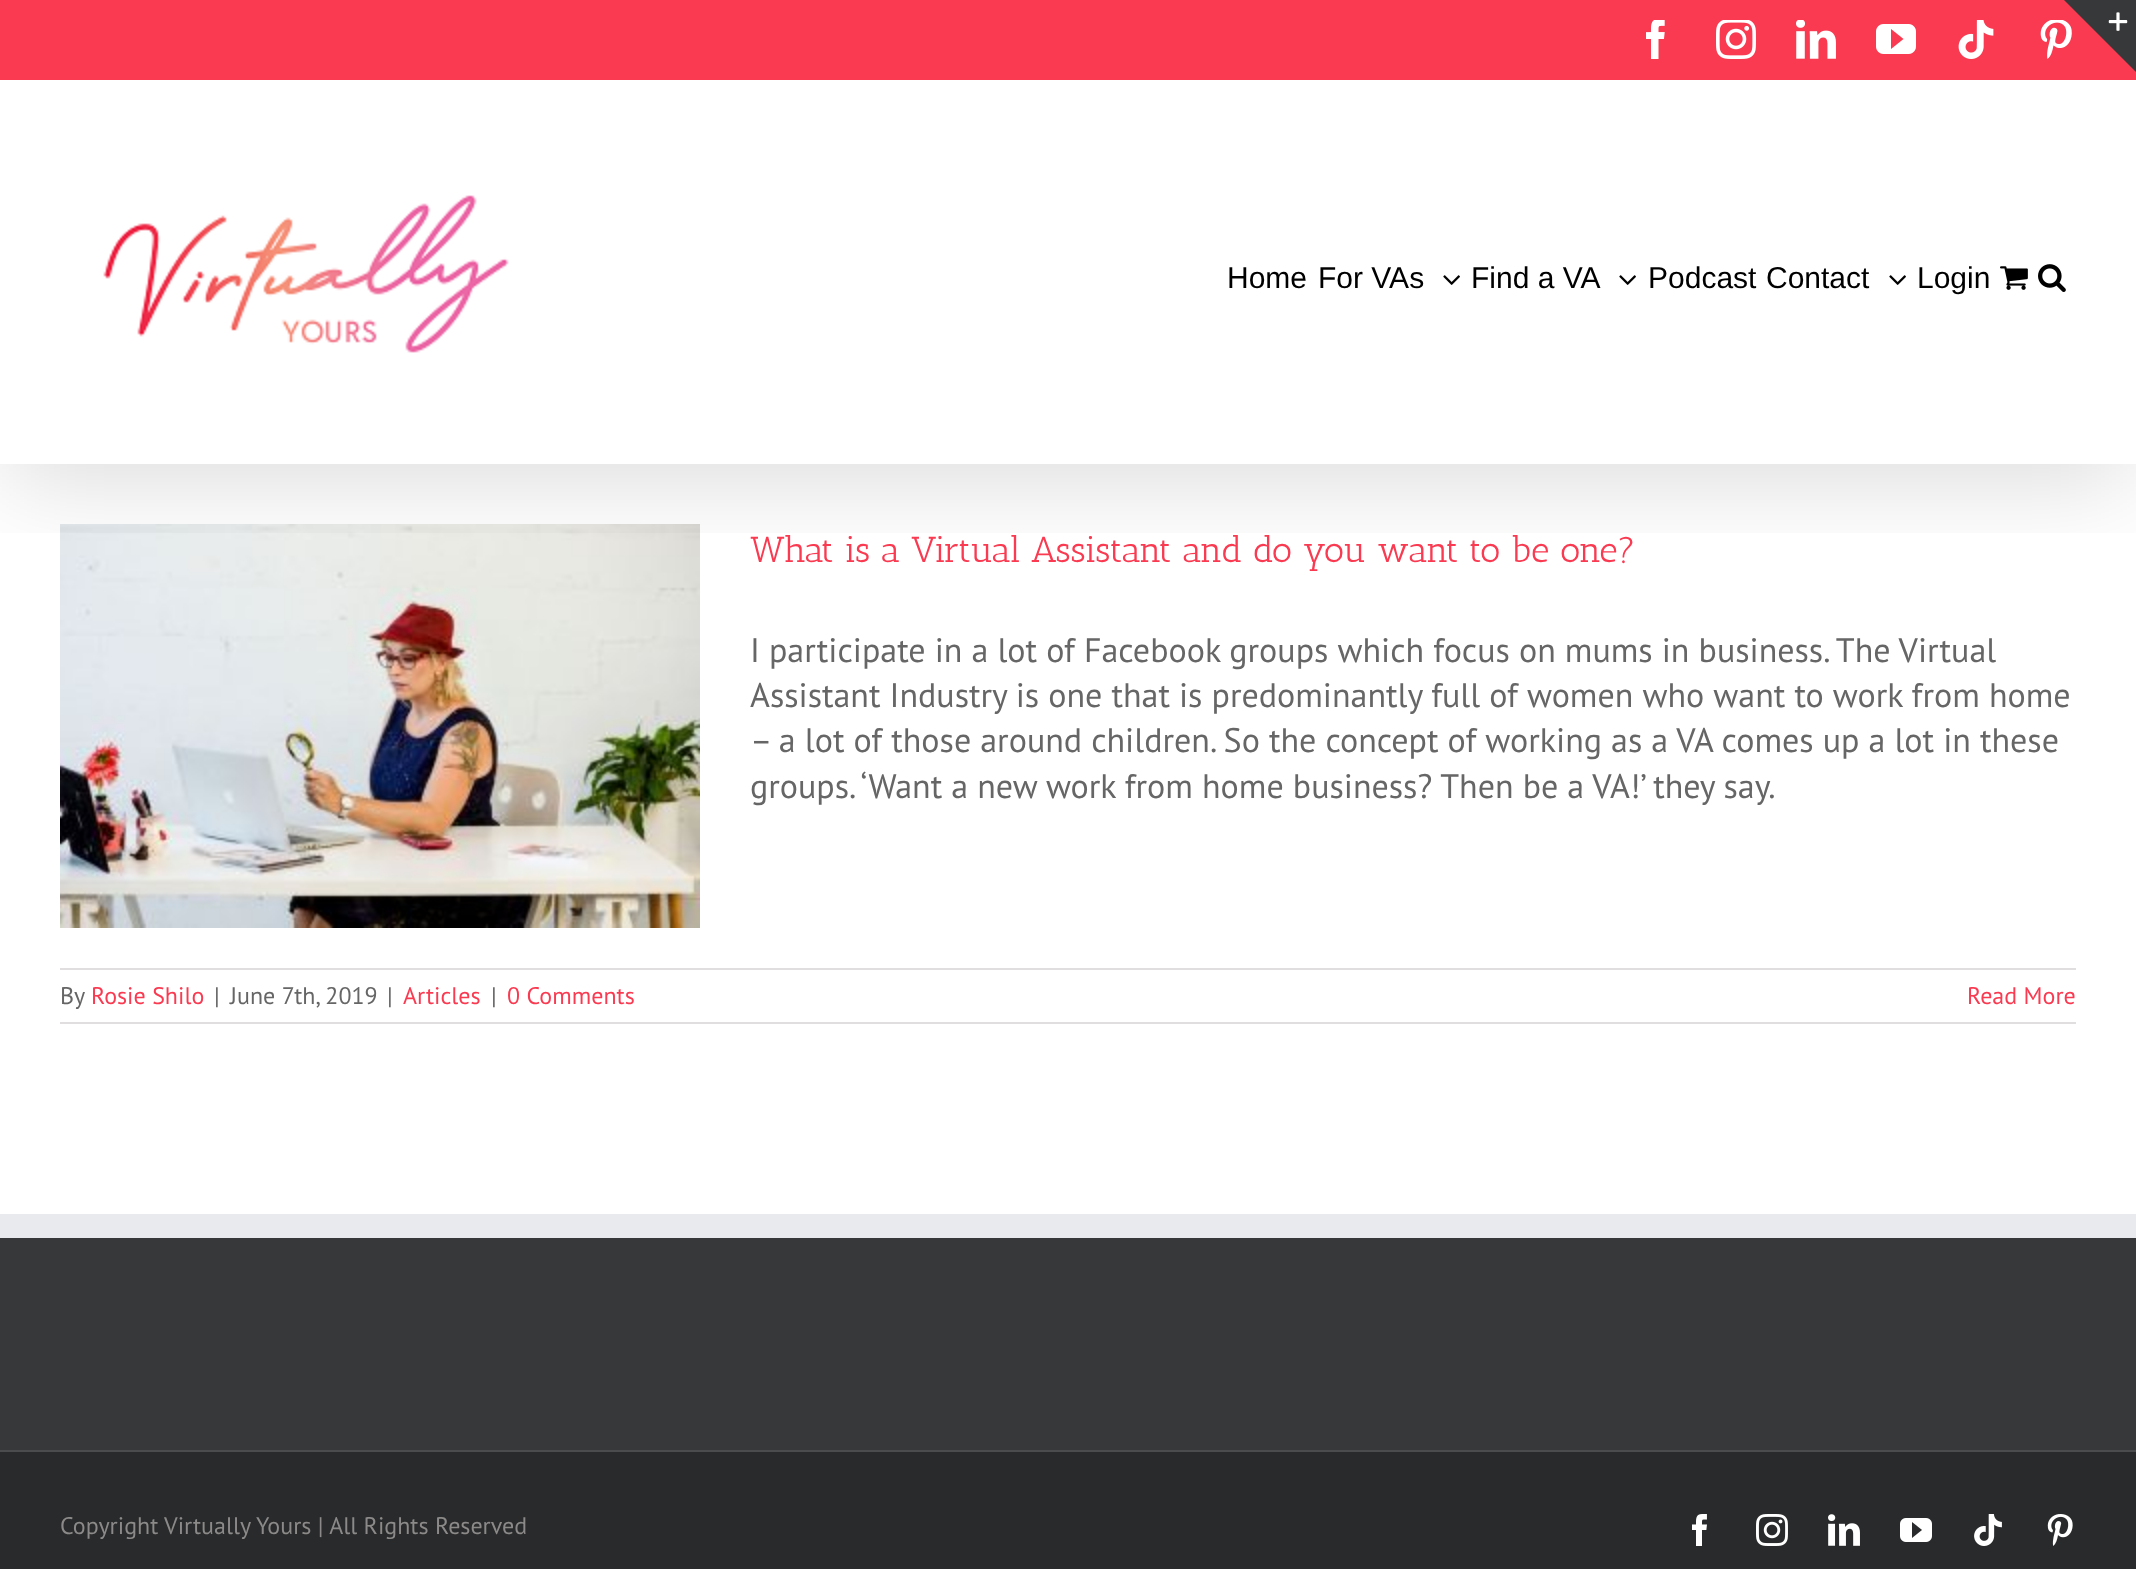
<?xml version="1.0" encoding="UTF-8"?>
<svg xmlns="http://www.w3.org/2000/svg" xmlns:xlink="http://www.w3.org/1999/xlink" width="2136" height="1569">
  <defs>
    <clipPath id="clip1"><rect x="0" y="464" width="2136" height="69" /></clipPath>
  </defs>
  <rect width="100%" height="100%" fill="#ffffff" />
  <image x="60" y="524" width="640" height="404" xlink:href="image12.png" />
  <g clip-path="url(#clip1)">
    <rect x="4" y="24" width="2128" height="456" fill="#000000" fill-opacity="0.14" filter="blur(50px)" />
  </g>
  <rect width="2136" height="80" fill="#f93a51" />
  <image x="2040" y="20" width="32" height="39" xlink:href="image7.png" />
  <path d="M 2064 0 h 72 v 72 z" fill="#363839" />
  <image x="2108" y="12" width="20" height="19" xlink:href="image1.png" />
  <image x="1646" y="20" width="19" height="39" xlink:href="image2.png" />
  <image x="1716" y="20" width="40" height="39" xlink:href="image3.png" />
  <image x="1796" y="20" width="40" height="39" xlink:href="image4.png" />
  <image x="1876" y="24" width="40" height="30" xlink:href="image5.png" />
  <image x="1958" y="20" width="36" height="39" xlink:href="image6.png" />
  <image x="103" y="195" width="406" height="158" xlink:href="image8.png" />
  <image x="1443" y="275" width="17" height="10" xlink:href="image9.png" />
  <image x="1619" y="275" width="17" height="10" xlink:href="image9.png" />
  <image x="1889" y="275" width="17" height="10" xlink:href="image9.png" />
  <image x="2000" y="266" width="28" height="24" xlink:href="image10.png" />
  <image x="2038" y="264" width="28" height="28" xlink:href="image11.png" />
  <rect x="60" y="968" width="2016" height="2" fill="#e0dede" />
  <rect x="60" y="1022" width="2016" height="2" fill="#e0dede" />
  <rect y="1238" width="2136" height="212" fill="#363839" />
  <rect y="1214" width="2136" height="24" fill="#e9eaee" />
  <rect y="1452" width="2136" height="117" fill="#282a2b" />
  <rect y="1450" width="2136" height="2" fill="#4b4c4d" />
  <image x="1692" y="1514" width="15" height="32" xlink:href="image13.png" />
  <image x="1756" y="1514" width="32" height="32" xlink:href="image14.png" />
  <image x="1828" y="1514" width="32" height="32" xlink:href="image15.png" />
  <image x="1900" y="1518" width="32" height="24" xlink:href="image16.png" />
  <image x="1974" y="1514" width="28" height="32" xlink:href="image17.png" />
  <image x="2047" y="1514" width="26" height="32" xlink:href="image18.png" />
  <text x="1227" y="288" style="font-family: Liberation Sans; font-size: 30px; fill: #000000">Home</text>
  <text x="1318" y="288" style="font-family: Liberation Sans; font-size: 30px; fill: #000000">For VAs</text>
  <text x="1471" y="288" style="font-family: Liberation Sans; font-size: 30px; fill: #000000">Find a VA</text>
  <text x="1648" y="288" style="font-family: Liberation Sans; font-size: 30px; fill: #000000">Podcast</text>
  <text x="1766" y="288" style="font-family: Liberation Sans; font-size: 30px; fill: #000000">Contact</text>
  <text x="1917" y="288" style="font-family: Liberation Sans; font-size: 30px; fill: #000000">Login</text>
  <text x="750" y="562" style="font-family: Antic Slab; font-size: 36px; fill: #f93a51">What is a Virtual Assistant and do you want to be one?</text>
  <text x="750" y="662" style="font-family: PT Sans; font-size: 34px; fill: #666666">I participate in a lot of Facebook groups which focus on mums in business. The Virtual</text>
  <text x="750" y="707" style="font-family: PT Sans; font-size: 34px; fill: #666666">Assistant Industry is one that is predominantly full of women who want to work from home</text>
  <text x="750" y="752" style="font-family: PT Sans; font-size: 34px; fill: #666666">– a lot of those around children. So the concept of working as a VA comes up a lot in these</text>
  <text x="750" y="798" style="font-family: PT Sans; font-size: 34px; fill: #666666">groups. ‘Want a new work from home business? Then be a VA!’ they say.</text>
  <text x="60" y="1004" style="font-family: PT Sans; font-size: 24px; fill: #666666">By</text>
  <text x="91" y="1004" style="font-family: PT Sans; font-size: 24px; fill: #f93a51">Rosie Shilo</text>
  <text x="214" y="1004" style="font-family: PT Sans; font-size: 24px; fill: #666666">|</text>
  <text x="230" y="1004" style="font-family: PT Sans; font-size: 24px; fill: #666666">June 7th, 2019</text>
  <text x="387" y="1004" style="font-family: PT Sans; font-size: 24px; fill: #666666">|</text>
  <text x="403" y="1004" style="font-family: PT Sans; font-size: 24px; fill: #f93a51">Articles</text>
  <text x="491" y="1004" style="font-family: PT Sans; font-size: 24px; fill: #666666">|</text>
  <text x="507" y="1004" style="font-family: PT Sans; font-size: 24px; fill: #f93a51">0 Comments</text>
  <text x="1967" y="1004" style="font-family: PT Sans; font-size: 24px; fill: #f93a51">Read More</text>
  <text x="60" y="1534" style="font-family: PT Sans; font-size: 24px; fill: #8c8989">Copyright Virtually Yours | All Rights Reserved</text>
</svg>
